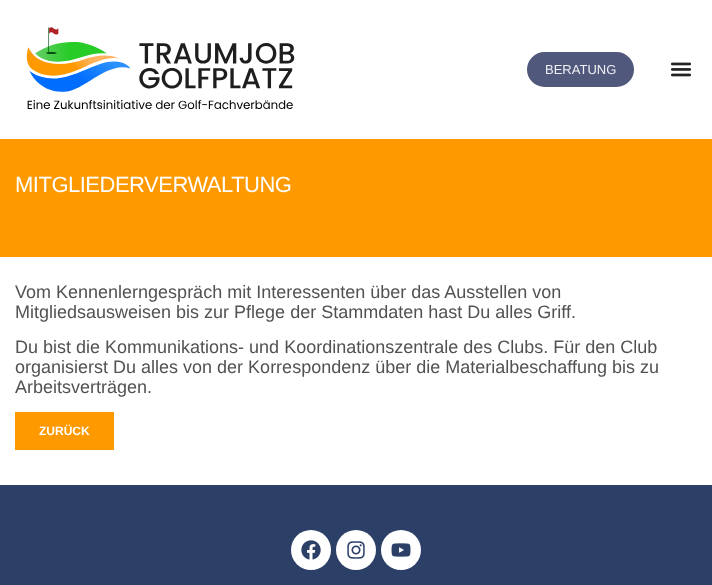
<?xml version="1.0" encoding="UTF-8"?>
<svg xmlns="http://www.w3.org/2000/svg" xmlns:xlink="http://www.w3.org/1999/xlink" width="712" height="585">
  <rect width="100%" height="100%" fill="#ffffff" />
  <image x="26" y="27" width="269" height="83" xlink:href="image1.png" />
  <rect x="528" y="53" width="105" height="33" rx="16.5" fill="#50587c" stroke="#50587c" stroke-width="2" />
  <image x="670" y="62" width="22" height="15" xlink:href="image2.png" />
  <rect y="139" width="712" height="118" fill="#ff9900" />
  <rect x="15" y="412" width="99" height="38" fill="#ff9900" />
  <rect y="485" width="712" height="100" fill="#2c3f67" />
  <circle cx="311" cy="550" r="20" fill="#ffffff" />
  <image x="301" y="540" width="20" height="20" xlink:href="image3.png" />
  <circle cx="356" cy="550" r="20" fill="#ffffff" />
  <image x="347" y="541" width="18" height="18" xlink:href="image4.png" />
  <circle cx="401" cy="550" r="20" fill="#ffffff" />
  <image x="391" y="543" width="20" height="14" xlink:href="image5.png" />
  <text x="545" y="74" style="font-family: Liberation Sans; font-size: 13px; fill: #f0eff5">BERATUNG</text>
  <text x="15" y="192" style="font-family: Liberation Sans; font-size: 22px; letter-spacing: -0.5px; fill: #ffffff">MITGLIEDERVERWALTUNG</text>
  <text x="15" y="298" style="font-family: Liberation Sans; font-size: 18px; fill: #525252">Vom Kennenlerngespräch mit Interessenten über das Ausstellen von</text>
  <text x="15" y="318" style="font-family: Liberation Sans; font-size: 18px; fill: #525252">Mitgliedsausweisen bis zur Pflege der Stammdaten hast Du alles Griff.</text>
  <text x="15" y="353" style="font-family: Liberation Sans; font-size: 18px; fill: #525252">Du bist die Kommunikations- und Koordinationszentrale des Clubs. Für den Club</text>
  <text x="15" y="373" style="font-family: Liberation Sans; font-size: 18px; fill: #525252">organisierst Du alles von der Korrespondenz über die Materialbeschaffung bis zu</text>
  <text x="15" y="393" style="font-family: Liberation Sans; font-size: 18px; fill: #525252">Arbeitsverträgen.</text>
  <text x="39" y="435" style="font-family: Liberation Sans; font-size: 12px; font-weight: bold; fill: #ffffff">ZURÜCK</text>
</svg>
